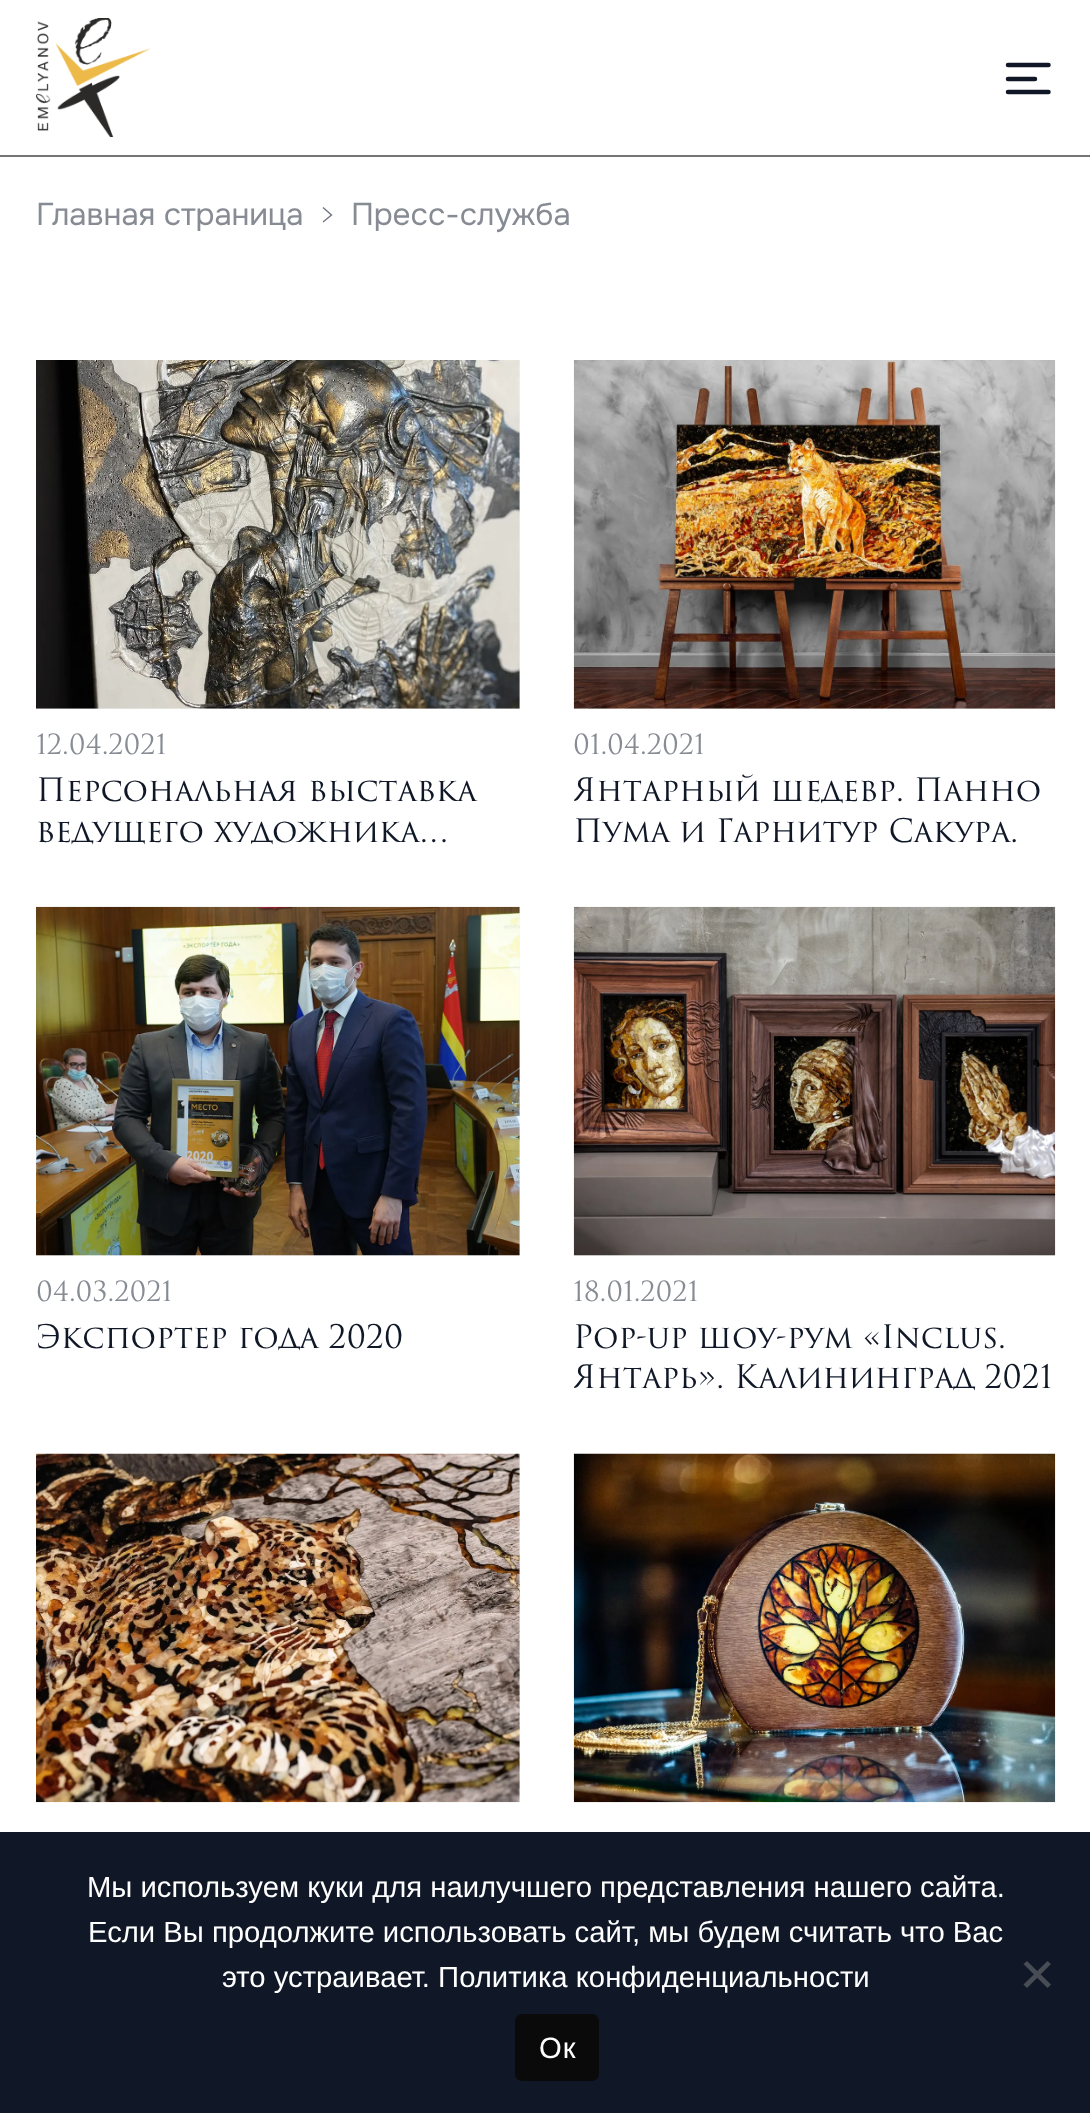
<?xml version="1.0" encoding="UTF-8"?>
<svg xmlns="http://www.w3.org/2000/svg" xmlns:xlink="http://www.w3.org/1999/xlink" width="1090" height="2113">
  <defs>
    <clipPath id="clip1"><rect x="574" y="772" width="481" height="81" /></clipPath>
    <clipPath id="clip2"><rect x="574" y="1319" width="481" height="81" /></clipPath>
  </defs>
  <rect width="100%" height="100%" fill="#ffffff" />
  <rect y="155" width="1090" height="2" fill="#757575" />
  <image x="36" y="18" width="115" height="119" xlink:href="image1.png" />
  <path d="M 1008 92 h 40.5 m -40.5 -13 h 27 m -27 -14 h 40.5" fill="none" stroke="#101828" stroke-width="4.5" stroke-linecap="round" stroke-linejoin="round" />
  <path d="M 323 207.5 l 8.5 7.5 l -8.5 7" fill="none" stroke="#70747e" stroke-width="1.4" />
  <rect x="36" y="360" width="484" height="349" fill="#f5f5f5" />
  <image x="36" y="360" width="484" height="349" xlink:href="image2.png" />
  <rect x="574" y="708" width="481" height="1" fill="#f5f5f5" />
  <image x="573" y="360" width="483" height="349" xlink:href="image3.png" />
  <rect x="36" y="907" width="484" height="349" fill="#f5f5f5" />
  <image x="36" y="906" width="484" height="350" xlink:href="image4.png" />
  <rect x="574" y="1255" width="481" height="1" fill="#f5f5f5" />
  <image x="573" y="906" width="483" height="350" xlink:href="image5.png" />
  <rect x="519" y="1454" width="1" height="348" fill="#f5f5f5" />
  <image x="36" y="1453" width="484" height="350" xlink:href="image6.png" />
  <image x="573" y="1453" width="483" height="350" xlink:href="image7.png" />
  <rect y="1832" width="1090" height="281" fill="#101828" />
  <path d="M 1047.5 1961 l 3.5 3 l -24 24 l -3.5 -3.5 z" fill="#484c54" />
  <path d="M 1023.5 1964 l 3.5 -3 l 24 23.5 l -3.5 3.5 z" fill="#484c54" />
  <rect x="515" y="2014" width="84" height="67" rx="7" fill="#0a0a0a" />
  <text x="36" y="225" style="font-family: Onest; font-size: 31.5px; letter-spacing: -0.15px; fill: #878b93">Главная страница</text>
  <text x="351" y="225" style="font-family: Onest; font-size: 31.5px; letter-spacing: -0.15px; fill: #878b93">Пресс-служба</text>
  <text x="36" y="754" style="font-family: 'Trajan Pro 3'; font-size: 27px; letter-spacing: -0.1px; fill: #878b93">12.04.2021</text>
  <text x="36" y="801" style="font-family: 'Trajan Pro 3'; font-size: 31.5px; letter-spacing: -0.15px; fill: #101828">Персональная выставка</text>
  <text x="36" y="842" style="font-family: 'Trajan Pro 3'; font-size: 31.5px; letter-spacing: -0.15px; fill: #101828">ведущего художника…</text>
  <text x="573" y="754" style="font-family: 'Trajan Pro 3'; font-size: 27px; letter-spacing: -0.1px; fill: #878b93">01.04.2021</text>
  <g clip-path="url(#clip1)">
    <text x="573" y="801" style="font-family: 'Trajan Pro 3'; font-size: 31.5px; letter-spacing: -0.15px; fill: #101828">Янтарный шедевр. Панно</text>
  </g>
  <text x="573" y="842" style="font-family: 'Trajan Pro 3'; font-size: 31.5px; letter-spacing: -0.15px; fill: #101828">Пума и Гарнитур Сакура.</text>
  <text x="36" y="1301" style="font-family: 'Trajan Pro 3'; font-size: 27px; letter-spacing: -0.1px; fill: #878b93">04.03.2021</text>
  <text x="36" y="1348" style="font-family: 'Trajan Pro 3'; font-size: 31.5px; letter-spacing: -0.15px; fill: #101828">Экспортер года 2020</text>
  <text x="573" y="1301" style="font-family: 'Trajan Pro 3'; font-size: 27px; letter-spacing: -0.1px; fill: #878b93">18.01.2021</text>
  <text x="573" y="1348" style="font-family: 'Trajan Pro 3'; font-size: 31.5px; letter-spacing: -0.15px; fill: #101828">Pop-up шоу-рум «Inclus.</text>
  <g clip-path="url(#clip2)">
    <text x="573" y="1388" style="font-family: 'Trajan Pro 3'; font-size: 31.5px; letter-spacing: -0.15px; fill: #101828">Янтарь». Калининград 2021</text>
  </g>
  <text x="87" y="1897" style="font-family: Liberation Sans; font-size: 29.25px; fill: #ffffff">Мы используем куки для наилучшего представления нашего сайта.</text>
  <text x="88" y="1942" style="font-family: Liberation Sans; font-size: 29.25px; fill: #ffffff">Если Вы продолжите использовать сайт, мы будем считать что Вас</text>
  <text x="222" y="1987" style="font-family: Liberation Sans; font-size: 29.25px; fill: #ffffff">это устраивает. Политика конфиденциальности</text>
  <text x="539" y="2058" style="font-family: Liberation Sans; font-size: 29.25px; letter-spacing: 1px; fill: #ffffff">Ок</text>
</svg>
